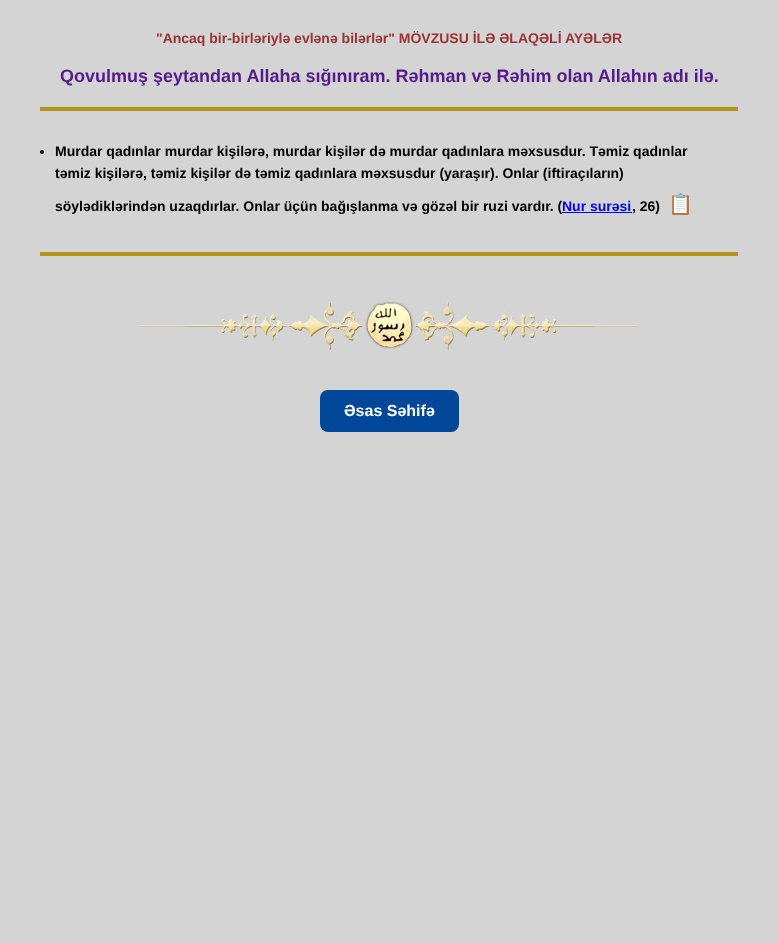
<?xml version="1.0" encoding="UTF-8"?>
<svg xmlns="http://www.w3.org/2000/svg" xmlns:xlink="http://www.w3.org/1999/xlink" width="778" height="943">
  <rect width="100%" height="100%" fill="#d4d4d4" />
  <rect x="40" y="107" width="698" height="4" fill="#b69218" />
  <rect x="40" y="252" width="698" height="4" fill="#b69218" />
  <circle cx="42" cy="152" r="2" fill="#000000" />
  <image x="139" y="300" width="499" height="50" xlink:href="image1.png" />
  <rect x="320" y="390" width="139" height="42" rx="8" fill="#004699" />
  <text x="156" y="43" style="font-family: Liberation Sans; font-size: 14px; font-weight: bold; fill: #993333">"Ancaq bir-birləriylə evlənə bilərlər" MÖVZUSU İLƏ ƏLAQƏLİ AYƏLƏR</text>
  <text x="60" y="82" style="font-family: Liberation Sans; font-size: 18px; font-weight: bold; fill: #551a8b">Qovulmuş şeytandan Allaha sığınıram. Rəhman və Rəhim olan Allahın adı ilə.</text>
  <text x="55" y="156" style="font-family: Liberation Sans; font-size: 14px; font-weight: bold; fill: #000000">Murdar qadınlar murdar kişilərə, murdar kişilər də murdar qadınlara məxsusdur. Təmiz qadınlar</text>
  <text x="55" y="178" style="font-family: Liberation Sans; font-size: 14px; font-weight: bold; fill: #000000">təmiz kişilərə, təmiz kişilər də təmiz qadınlara məxsusdur (yaraşır). Onlar (iftiraçıların)</text>
  <text x="55" y="211" style="font-family: Liberation Sans; font-size: 14px; font-weight: bold; fill: #000000">söylədiklərindən uzaqdırlar. Onlar üçün bağışlanma və gözəl bir ruzi vardır. (</text>
  <text x="562" y="211" style="font-family: Liberation Sans; font-size: 14px; font-weight: bold; fill: #0000ee">Nur surəsi</text>
  <rect x="562" y="212" width="70" height="1" fill="#0000ee" />
  <text x="632" y="211" style="font-family: Liberation Sans; font-size: 14px; font-weight: bold; fill: #000000">, 26)</text>
  <text x="668" y="211" style="font-family: Noto Color Emoji; font-size: 20px; font-weight: bold; fill: #000000">📋</text>
  <text x="344" y="416" style="font-family: Liberation Sans; font-size: 16px; font-weight: bold; fill: #ffffff">Əsas Səhifə</text>
</svg>
